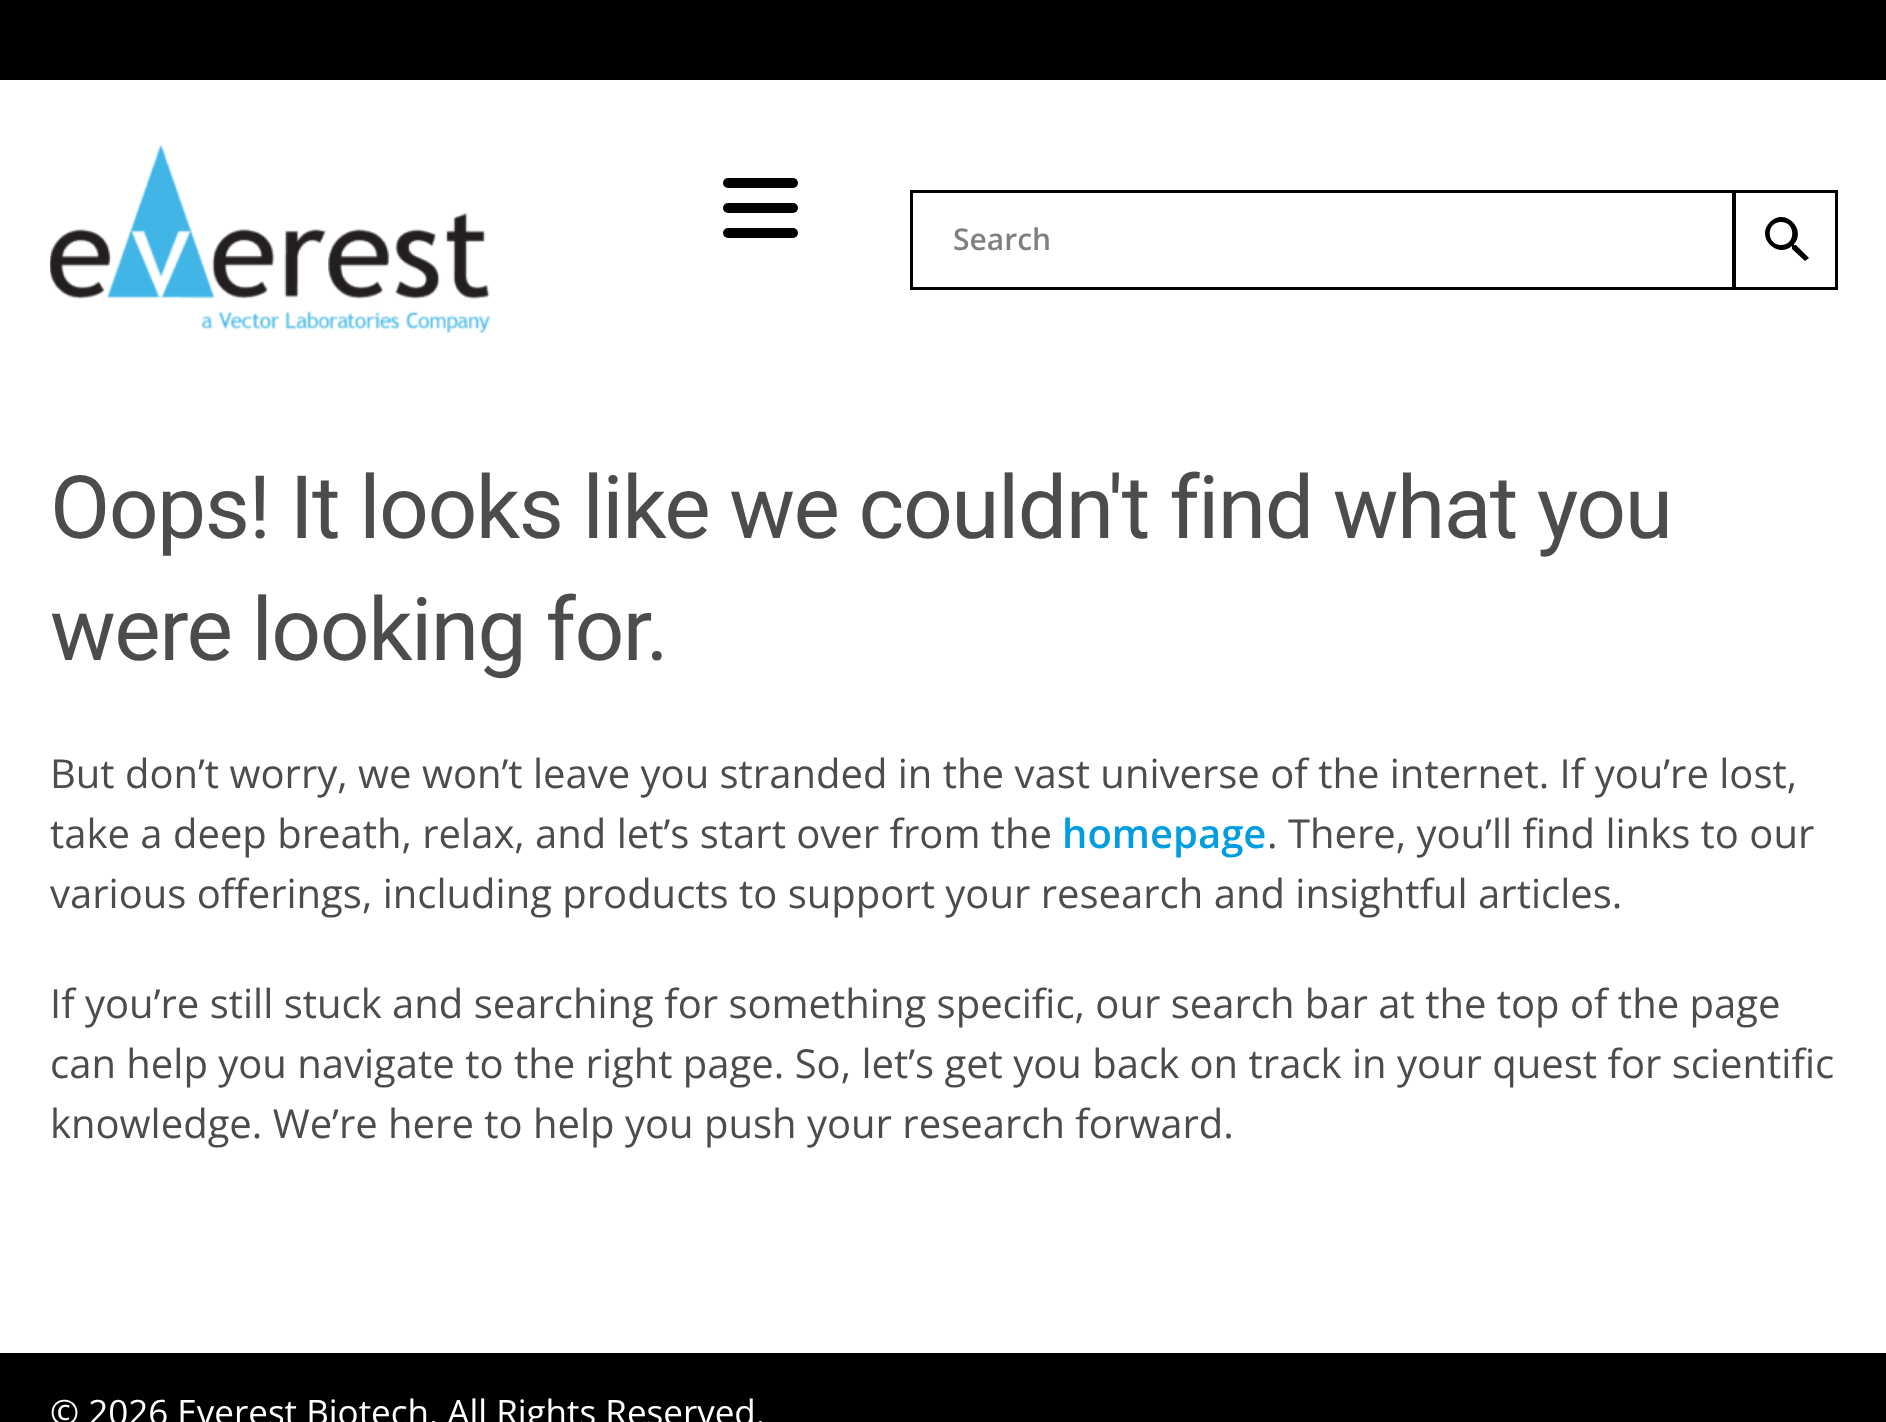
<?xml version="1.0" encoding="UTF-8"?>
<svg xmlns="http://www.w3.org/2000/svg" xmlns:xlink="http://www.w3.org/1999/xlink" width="1886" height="1422">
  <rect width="100%" height="100%" fill="#ffffff" />
  <rect width="1886" height="80" fill="#000000" />
  <image x="50" y="145" width="440" height="188" xlink:href="image1.png" />
  <rect x="723" y="178" width="75" height="10" rx="5" fill="#000000" />
  <rect x="723" y="203" width="75" height="10" rx="5" fill="#000000" />
  <rect x="723" y="228" width="75" height="10" rx="5" fill="#000000" />
  <rect x="1734.5" y="191.5" width="102" height="97" fill="none" stroke="#000000" stroke-width="3" />
  <rect x="911.5" y="191.5" width="822" height="97" fill="none" stroke="#000000" stroke-width="3" />
  <path d="M 1796 245 h -2 v -1 c 13 -15 -9 -37 -24 -22 c -15 15 7 37 22 24 v 1 v 2 l 13 12 l 4 -3 z m -15 0 c -15 0 -15 -23 0 -23 c 15 0 15 23 0 23 z" fill="#000000" />
  <rect y="1353" width="1886" height="69" fill="#000000" />
  <text x="953" y="250" style="font-family: Open Sans; font-size: 30px; font-weight: 600; fill: #808080">Search</text>
  <text x="50" y="538" style="font-family: Roboto; font-size: 87.5px; letter-spacing: -1.5px; fill: #4c4c4c">Oops! It looks like we couldn't find what you</text>
  <text x="50" y="660" style="font-family: Roboto; font-size: 87.5px; letter-spacing: -1.5px; fill: #4c4c4c">were looking for.</text>
  <text x="50" y="788" style="font-family: Open Sans; font-size: 40px; fill: #4c4c4c">But don’t worry, we won’t leave you stranded in the vast universe of the internet. If you’re lost,</text>
  <text x="50" y="848" style="font-family: Open Sans; font-size: 40px; fill: #4c4c4c">take a deep breath, relax, and let’s start over from the</text>
  <text x="1062" y="848" style="font-family: Open Sans; font-size: 40px; font-weight: 600; fill: #009de0">homepage</text>
  <text x="1267" y="848" style="font-family: Open Sans; font-size: 40px; fill: #4c4c4c">. There, you’ll find links to our</text>
  <text x="50" y="908" style="font-family: Open Sans; font-size: 40px; fill: #4c4c4c">various offerings, including products to support your research and insightful articles.</text>
  <text x="50" y="1018" style="font-family: Open Sans; font-size: 40px; fill: #4c4c4c">If you’re still stuck and searching for something specific, our search bar at the top of the page</text>
  <text x="50" y="1078" style="font-family: Open Sans; font-size: 40px; fill: #4c4c4c">can help you navigate to the right page. So, let’s get you back on track in your quest for scientific</text>
  <text x="50" y="1138" style="font-family: Open Sans; font-size: 40px; fill: #4c4c4c">knowledge. We’re here to help you push your research forward.</text>
  <text x="50" y="1425" style="font-family: Open Sans; font-size: 35px; fill: #ffffff">© 2026 Everest Biotech. All Rights Reserved.</text>
</svg>
